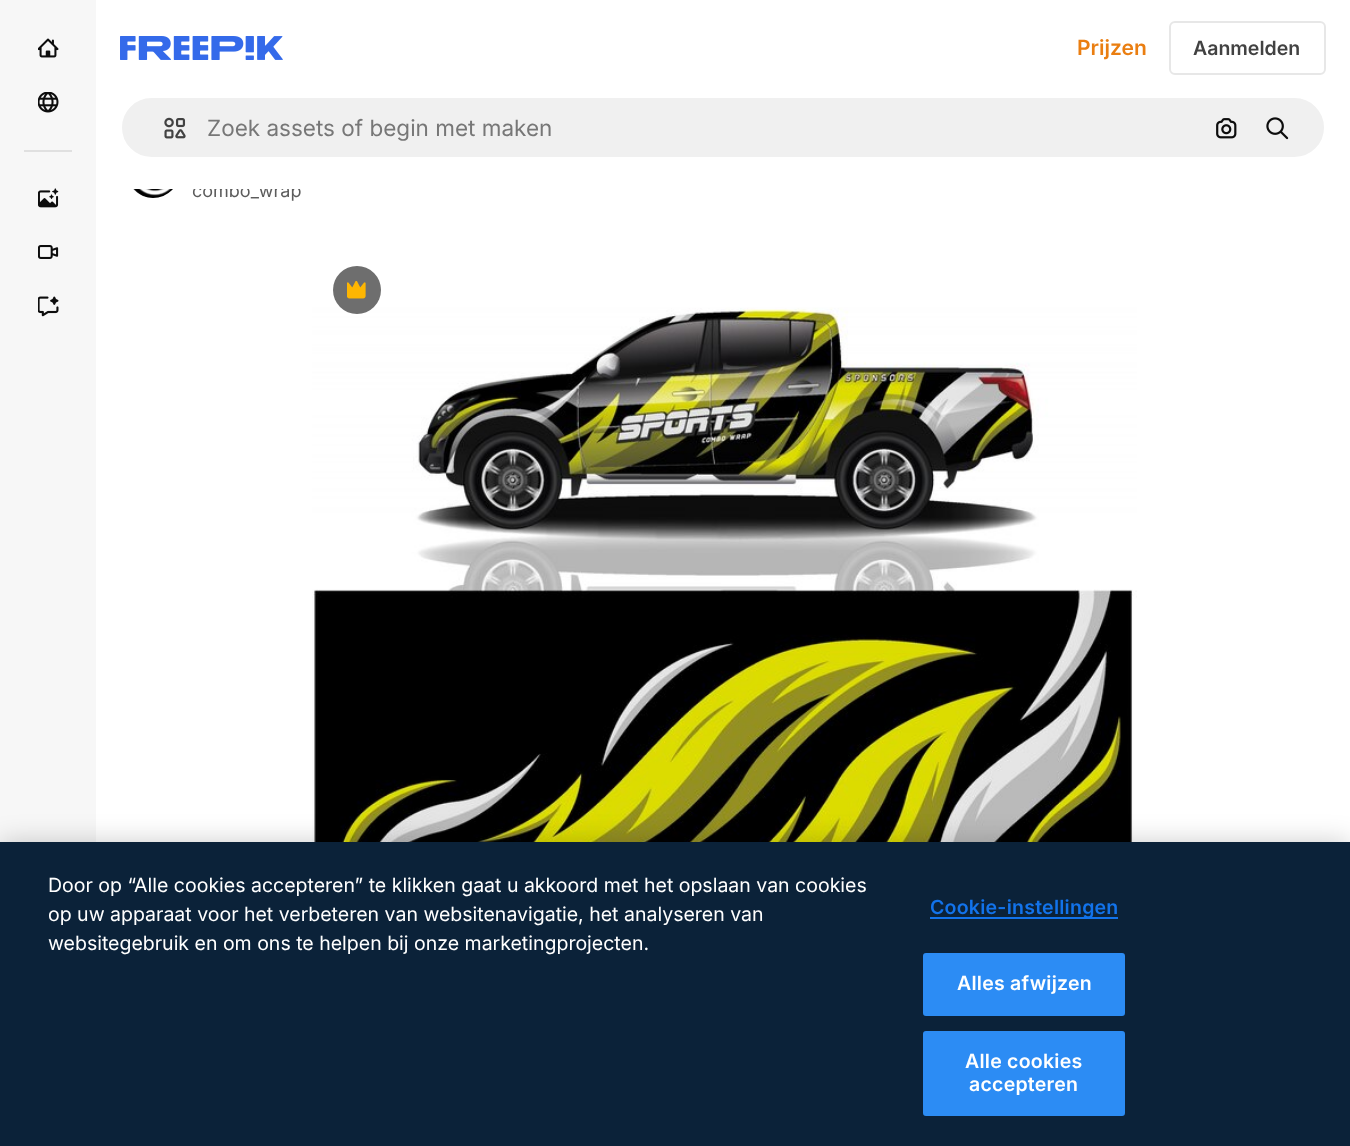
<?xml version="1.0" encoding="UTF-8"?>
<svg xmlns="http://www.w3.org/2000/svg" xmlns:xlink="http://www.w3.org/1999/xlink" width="1350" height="1146">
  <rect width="100%" height="100%" fill="#ffffff" />
  <rect width="96" height="842" fill="#f7f7f7" />
  <image x="38" y="38" width="21" height="20" xlink:href="image1.png" />
  <image x="38" y="92" width="21" height="21" xlink:href="image2.png" />
  <rect x="24" y="150" width="48" height="2" fill="#e0e0e0" />
  <image x="38" y="188" width="21" height="20" xlink:href="image3.png" />
  <image x="38" y="245" width="21" height="14" xlink:href="image4.png" />
  <image x="38" y="296" width="21" height="21" xlink:href="image5.png" />
  <image x="120" y="36" width="163" height="24" xlink:href="image6.png" />
  <rect x="1170" y="22" width="155" height="52" rx="5" fill="none" stroke="#e7e7e7" stroke-width="2" />
  <rect x="121" y="97" width="1204" height="61" rx="30.5" fill="#f0f0f0" stroke="#ffffff" stroke-width="2" />
  <image x="164" y="117" width="22" height="22" xlink:href="image7.png" />
  <image x="1216" y="118" width="21" height="21" xlink:href="image8.png" />
  <image x="1266" y="117" width="23" height="23" xlink:href="image9.png" />
  <image x="133" y="189" width="40" height="9" xlink:href="image10.png" />
  <image x="312" y="307" width="825" height="535" xlink:href="image12.png" />
  <circle cx="357" cy="290" r="24" fill="#6e6e6e" />
  <image x="347" y="281" width="19" height="18" xlink:href="image11.png" />
  <rect y="842" width="1350" height="304" fill="#000000" fill-opacity="0.2" filter="blur(13.5px)" />
  <rect y="842" width="1350" height="304" fill="#0b2239" />
  <rect x="930" y="917" width="188" height="2" fill="#1273eb" />
  <rect x="924" y="954" width="200" height="61" rx="2" fill="#2c8cf4" stroke="#2c8cf4" stroke-width="2" />
  <rect x="924" y="1032" width="200" height="83" rx="2" fill="#2c8cf4" stroke="#2c8cf4" stroke-width="2" />
  <text x="1077" y="55" style="font-family: Inter; font-size: 21px; font-weight: 600; fill: #ea7e11">Prijzen</text>
  <text x="1193" y="55" style="font-family: Inter; font-size: 19.5px; font-weight: 600; fill: #424242">Aanmelden</text>
  <text x="207" y="136" style="font-family: Inter; font-size: 22.5px; fill: #777777">Zoek assets of begin met maken</text>
  <text x="192" y="197" style="font-family: Inter; font-size: 18px; fill: #5c5c5c">combo_wrap</text>
  <rect x="193" y="183" width="107" height="6" fill="#ffffff" />
  <text x="48" y="892" style="font-family: Inter; font-size: 19.5px; fill: #ffffff">Door op “Alle cookies accepteren” te klikken gaat u akkoord met het opslaan van cookies</text>
  <text x="48" y="921" style="font-family: Inter; font-size: 19.5px; fill: #ffffff">op uw apparaat voor het verbeteren van websitenavigatie, het analyseren van</text>
  <text x="48" y="950" style="font-family: Inter; font-size: 19.5px; fill: #ffffff">websitegebruik en om ons te helpen bij onze marketingprojecten.</text>
  <text x="930" y="914" style="font-family: Inter; font-size: 19.5px; font-weight: 600; letter-spacing: 0.25px; fill: #1273eb">Cookie-instellingen</text>
  <text x="957" y="990" style="font-family: Inter; font-size: 19.5px; font-weight: 600; letter-spacing: 0.25px; fill: #ffffff">Alles afwijzen</text>
  <text x="965" y="1068" style="font-family: Inter; font-size: 19.5px; font-weight: 600; letter-spacing: 0.25px; fill: #ffffff">Alle cookies</text>
  <text x="969" y="1091" style="font-family: Inter; font-size: 19.5px; font-weight: 600; letter-spacing: 0.25px; fill: #ffffff">accepteren</text>
</svg>
